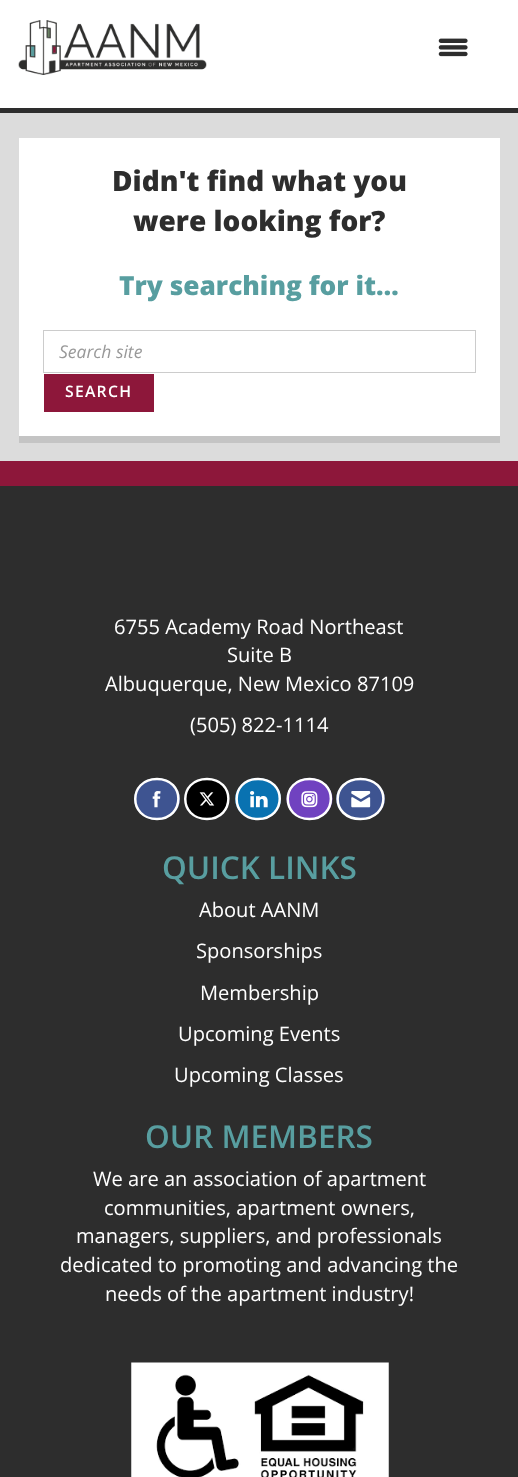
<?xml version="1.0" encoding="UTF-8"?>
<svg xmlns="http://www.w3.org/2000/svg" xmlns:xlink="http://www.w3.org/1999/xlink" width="518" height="1477">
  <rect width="100%" height="100%" fill="#dcdcdc" />
  <rect width="518" height="108" fill="#ffffff" />
  <rect y="108" width="518" height="5" fill="#2d2d2d" />
  <image x="18" y="20" width="189" height="55" xlink:href="image1.png" />
  <image x="438" y="38" width="30" height="19" xlink:href="image2.png" />
  <rect x="19" y="436" width="481" height="7" fill="#c4c4c4" />
  <rect x="19" y="138" width="481" height="298" fill="#ffffff" />
  <rect x="43.5" y="330.5" width="432" height="42" fill="none" stroke="#cccccc" />
  <rect x="44" y="374" width="110" height="38" fill="#8d173a" />
  <rect y="461" width="518" height="25" fill="#8d173a" />
  <rect y="486" width="518" height="991" fill="#2d2d2d" />
  <ellipse cx="157" cy="799" rx="23" ry="21" fill="#3e5491" />
  <path d="M 157 779 c 28.5 0 28.5 39.5 0 40 c -29 0 -29 -40 0 -40 z" fill="none" stroke="#ffffff" stroke-width="2.5" />
  <image x="152" y="791" width="9" height="17" xlink:href="image3.png" />
  <ellipse cx="207" cy="799" rx="23" ry="21" fill="#000000" />
  <path d="M 207 779 c 28.5 0 28.5 39.5 0 40 c -29 0 -29 -40 0 -40 z" fill="none" stroke="#ffffff" stroke-width="2.5" />
  <image x="199" y="792" width="16" height="14" xlink:href="image4.png" />
  <ellipse cx="258" cy="799" rx="23" ry="21" fill="#0972b1" />
  <path d="M 258 779 c 29 0 29 39.5 0 40 c -28.5 0 -28.5 -40 0 -40 z" fill="none" stroke="#ffffff" stroke-width="2.5" />
  <image x="250" y="791" width="18" height="17" xlink:href="image5.png" />
  <ellipse cx="309.5" cy="799" rx="23" ry="21" fill="#7042c0" />
  <path d="M 309.5 779 c 28.5 0 28.5 39.5 0 40 c -29 0 -29 -40 0 -40 z" fill="none" stroke="#ffffff" stroke-width="2.5" />
  <image x="301" y="791" width="17" height="17" xlink:href="image6.png" />
  <ellipse cx="360.5" cy="799" rx="24.5" ry="21" fill="#3e5491" />
  <path d="M 360.5 779 c 30.5 0 30.5 39.5 0 40 c -30.5 0 -30.5 -40 0 -40 z" fill="none" stroke="#ffffff" stroke-width="2.5" />
  <image x="351" y="791" width="20" height="17" xlink:href="image7.png" />
  <image x="131" y="1362" width="258" height="115" xlink:href="image8.png" />
  <text x="112" y="191" style="font-family: Open Sans; font-size: 28px; font-weight: 800; fill: #2d2d2d">Didn't find what you</text>
  <text x="133" y="231" style="font-family: Open Sans; font-size: 28px; font-weight: 800; fill: #2d2d2d">were looking for?</text>
  <text x="119" y="295" style="font-family: Open Sans; font-size: 26.25px; font-weight: 800; fill: #589ea0">Try searching for it…</text>
  <text x="59" y="358" style="font-family: Open Sans; font-size: 17.5px; font-style: italic; fill: #999999">Search site</text>
  <text x="65" y="397" style="font-family: Open Sans; font-size: 15.75px; font-weight: 600; letter-spacing: 1.25px; fill: #ffffff">SEARCH</text>
  <text x="114" y="634" style="font-family: Open Sans; font-size: 20.1px; fill: #ffffff">6755 Academy Road Northeast</text>
  <text x="227" y="662" style="font-family: Open Sans; font-size: 20.1px; fill: #ffffff">Suite B</text>
  <text x="105" y="691" style="font-family: Open Sans; font-size: 20.1px; fill: #ffffff">Albuquerque, New Mexico 87109</text>
  <text x="190" y="732" style="font-family: Open Sans; font-size: 20.1px; fill: #ffffff">(505) 822-1114</text>
  <text x="162" y="879" style="font-family: Open Sans; font-size: 31.5px; font-weight: 600; fill: #589ea0">QUICK LINKS</text>
  <text x="199" y="917" style="font-family: Open Sans; font-size: 20.1px; fill: #ffffff">About AANM</text>
  <text x="196" y="958" style="font-family: Open Sans; font-size: 20.1px; fill: #ffffff">Sponsorships</text>
  <text x="200" y="1000" style="font-family: Open Sans; font-size: 20.1px; fill: #ffffff">Membership</text>
  <text x="178" y="1041" style="font-family: Open Sans; font-size: 20.1px; fill: #ffffff">Upcoming Events</text>
  <text x="174" y="1082" style="font-family: Open Sans; font-size: 20.1px; fill: #ffffff">Upcoming Classes</text>
  <text x="145" y="1148" style="font-family: Open Sans; font-size: 31.5px; font-weight: 600; fill: #589ea0">OUR MEMBERS</text>
  <text x="93" y="1186" style="font-family: Open Sans; font-size: 20.1px; fill: #ffffff">We are an association of apartment</text>
  <text x="104" y="1215" style="font-family: Open Sans; font-size: 20.1px; fill: #ffffff">communities, apartment owners,</text>
  <text x="76" y="1243" style="font-family: Open Sans; font-size: 20.1px; fill: #ffffff">managers, suppliers, and professionals</text>
  <text x="60" y="1272" style="font-family: Open Sans; font-size: 20.1px; fill: #ffffff">dedicated to promoting and advancing the</text>
  <text x="105" y="1301" style="font-family: Open Sans; font-size: 20.1px; fill: #ffffff">needs of the apartment industry!</text>
</svg>
